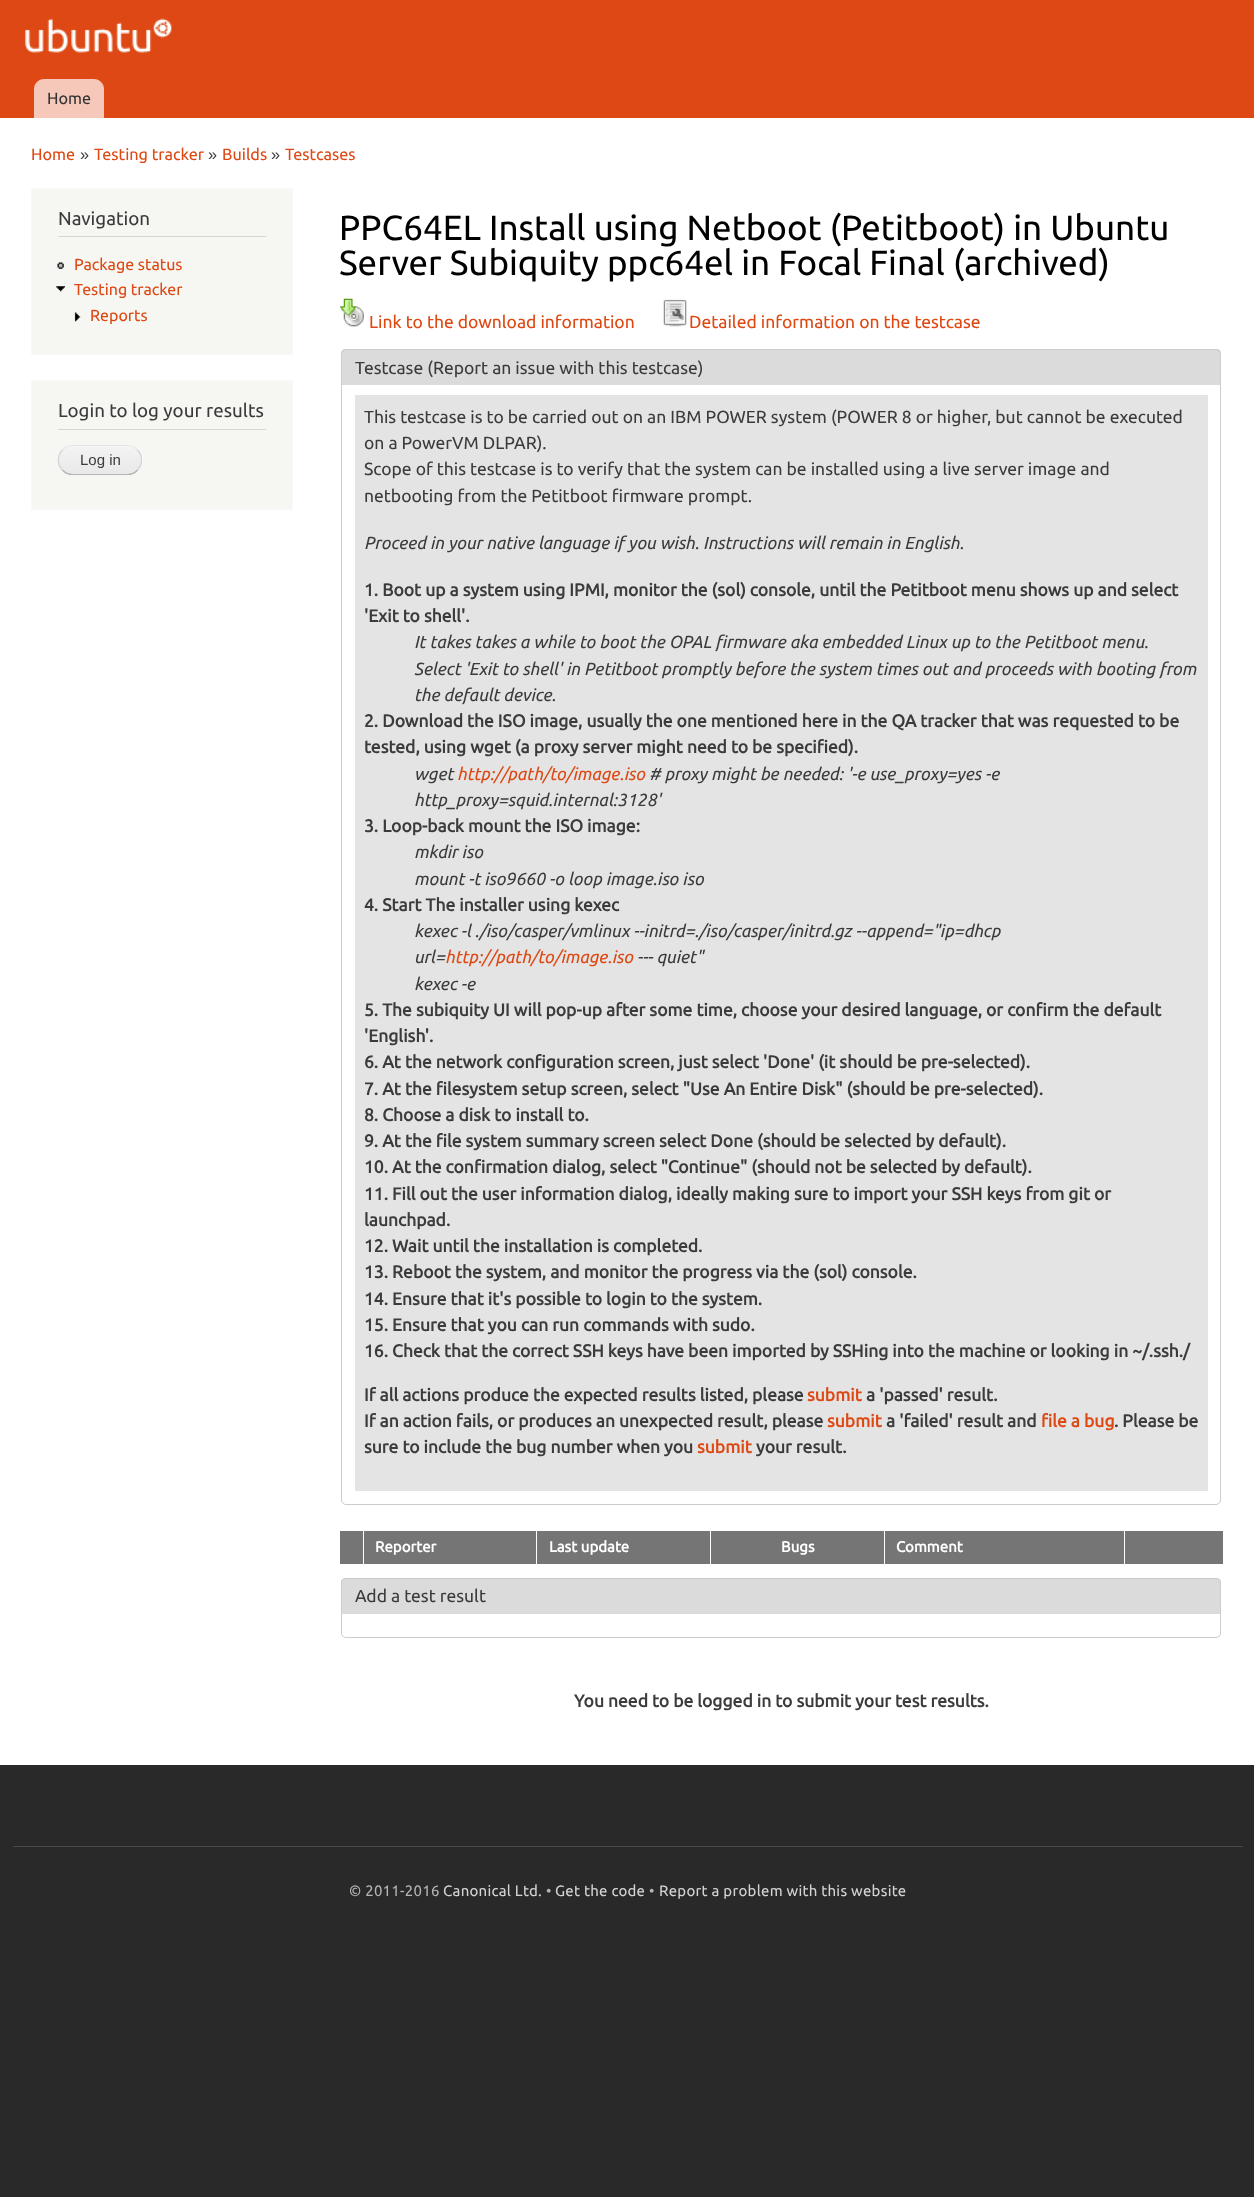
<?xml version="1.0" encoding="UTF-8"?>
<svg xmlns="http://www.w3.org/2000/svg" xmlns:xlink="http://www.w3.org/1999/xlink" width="1254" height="2197">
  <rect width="100%" height="100%" fill="#292929" />
  <rect y="118" width="1254" height="1647" fill="#ffffff" />
  <rect width="1254" height="118" fill="#dd4814" />
  <image x="25" y="18" width="147" height="35" xlink:href="image1.png" />
  <path d="M 44 79 h 50 c 5.5 0 10 4.5 10 10 v 29 h -70 v -29 c 0 -5.5 4.5 -10 10 -10 z" fill="#f5c8b9" />
  <rect x="31.5" y="188.5" width="261" height="166" fill="#f6f6f2" stroke="#f9f9f9" />
  <rect x="58" y="236" width="208" height="1" fill="#d6d6d6" />
  <image x="57" y="262" width="7" height="7" xlink:href="image2.png" />
  <image x="56" y="286" width="9" height="6" xlink:href="image3.png" />
  <image x="74" y="312" width="7" height="10" xlink:href="image4.png" />
  <rect x="31.5" y="380.5" width="261" height="129" fill="#f6f6f2" stroke="#f9f9f9" />
  <rect x="58" y="429" width="208" height="1" fill="#d6d6d6" />
  <rect x="58" y="445" width="85" height="30" rx="15" fill="#ffffff" />
  <image x="58" y="446" width="84" height="29" xlink:href="image5.png" />
  <path d="M 62.5 450 c 2.5 -3 6 -4.5 10 -4.5 h 55 c 4 0 7.5 1.5 10 4.5" fill="none" stroke="#e4e4e4" stroke-width="1.2" />
  <path d="M 137.5 450 c 5.5 5.5 5.5 14.5 0 20" fill="none" stroke="#d2d2d2" stroke-width="1.2" />
  <path d="M 137.5 470 c -2.5 3 -6 4.5 -10 4.5 h -55 c -4 0 -7.5 -1.5 -10 -4.5" fill="none" stroke="#b4b4b4" stroke-width="1.2" />
  <path d="M 62.5 470 c -5.5 -5.5 -5.5 -14.5 0 -20" fill="none" stroke="#d2d2d2" stroke-width="1.2" />
  <image x="339" y="298" width="25" height="29" xlink:href="image6.png" />
  <image x="663" y="299" width="24" height="28" xlink:href="image7.png" />
  <rect x="341.5" y="363.5" width="879" height="1141" rx="4.5" fill="none" stroke="#cccccc" />
  <path d="M 346 349 h 870 c 3 0 5 2 5 5 v 31 h -880 v -31 c 0 -3 2 -5 5 -5 z" fill="#dbdbdb" />
  <path d="M 346 349 h 870 c 3 0 5 2 5 5 v 31 h -880 v -31 c 0 -3 2 -5 5 -5 z m 0 1 h 870 c 2 0 4 2 4 4 v 31 h -878 v -31 c 0 -2 2 -4 4 -4 z" fill="#cccccc" fill-rule="evenodd" />
  <rect x="355" y="395" width="853" height="1096" fill="#e4e4e4" />
  <rect x="340" y="1531" width="23" height="33" fill="#757575" />
  <rect x="364" y="1531" width="172" height="33" fill="#757575" />
  <rect x="537" y="1531" width="173" height="33" fill="#757575" />
  <rect x="711" y="1531" width="173" height="33" fill="#757575" />
  <rect x="885" y="1531" width="239" height="33" fill="#757575" />
  <rect x="1125" y="1531" width="98" height="33" fill="#757575" />
  <rect x="341.5" y="1591.5" width="879" height="46" rx="4.5" fill="none" stroke="#cccccc" />
  <path d="M 346 1578 h 870 c 3 0 5 2 5 5 v 31 h -880 v -31 c 0 -3 2 -5 5 -5 z" fill="#dbdbdb" />
  <path d="M 346 1578 h 870 c 3 0 5 2 5 4 v 32 h -880 v -32 c 0 -2 2 -4 5 -4 z m 0 1 h 870 c 2 0 4 1 4 3 v 32 h -878 v -32 c 0 -2 2 -3 4 -3 z" fill="#cccccc" fill-rule="evenodd" />
  <rect x="13" y="1846" width="1230" height="1" fill="#494949" />
  <text x="47" y="104" style="font-family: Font; font-size: 16.25px; fill: #333333">Home</text>
  <text x="31" y="160" style="font-family: Font; font-size: 16.25px; fill: #dd4813">Home</text>
  <text x="80" y="160" style="font-family: Liberation Sans; font-size: 16.25px; fill: #3b3b3b">»</text>
  <text x="94" y="160" style="font-family: Font; font-size: 16.25px; fill: #dd4813">Testing tracker</text>
  <text x="208" y="160" style="font-family: Liberation Sans; font-size: 16.25px; fill: #3b3b3b">»</text>
  <text x="222" y="160" style="font-family: Font; font-size: 16.25px; fill: #dd4813">Builds</text>
  <text x="271" y="160" style="font-family: Liberation Sans; font-size: 16.25px; fill: #3b3b3b">»</text>
  <text x="285" y="160" style="font-family: Font; font-size: 16.25px; fill: #dd4813">Testcases</text>
  <text x="58" y="225" style="font-family: Font; font-size: 18.75px; fill: #3b3b3b">Navigation</text>
  <text x="74" y="270" style="font-family: Font; font-size: 16px; fill: #dd4813">Package status</text>
  <text x="74" y="295" style="font-family: Font; font-size: 16px; fill: #dd4813">Testing tracker</text>
  <text x="90" y="321" style="font-family: Font; font-size: 16px; fill: #dd4813">Reports</text>
  <text x="58" y="417" style="font-family: Font; font-size: 18.75px; fill: #3b3b3b">Login to log your results</text>
  <text x="80" y="465" style="font-family: Liberation Sans; font-size: 15px; fill: #3b3b3b">Log in</text>
  <text x="339" y="240" style="font-family: Font; font-size: 35px; fill: #000000">PPC64EL Install using Netboot (Petitboot) in Ubuntu</text>
  <text x="339" y="275" style="font-family: Font; font-size: 35px; fill: #000000">Server Subiquity ppc64el in Focal Final (archived)</text>
  <text x="369" y="328" style="font-family: Font; font-size: 17.5px; fill: #dd4813">Link to the download information</text>
  <text x="689" y="328" style="font-family: Font; font-size: 17.5px; fill: #dd4813">Detailed information on the testcase</text>
  <text x="355" y="374" style="font-family: Font; font-size: 17.5px; fill: #3b3b3b">Testcase (Report an issue with this testcase)</text>
  <text x="364" y="423" style="font-family: Font; font-size: 17.5px; fill: #3b3b3b">This testcase is to be carried out on an IBM POWER system (POWER 8 or higher, but cannot be executed</text>
  <text x="364" y="449" style="font-family: Font; font-size: 17.5px; fill: #3b3b3b">on a PowerVM DLPAR).</text>
  <text x="364" y="475" style="font-family: Font; font-size: 17.5px; fill: #3b3b3b">Scope of this testcase is to verify that the system can be installed using a live server image and</text>
  <text x="364" y="502" style="font-family: Font; font-size: 17.5px; fill: #3b3b3b">netbooting from the Petitboot firmware prompt.</text>
  <text x="364" y="549" style="font-family: Ubuntu; font-size: 17.5px; font-style: italic; fill: #3b3b3b">Proceed in your native language if you wish. Instructions will remain in English.</text>
  <text x="364" y="596" style="font-family: Font; font-size: 17.5px; font-weight: bold; fill: #3b3b3b">1. Boot up a system using IPMI, monitor the (sol) console, until the Petitboot menu shows up and select</text>
  <text x="364" y="622" style="font-family: Font; font-size: 17.5px; font-weight: bold; fill: #3b3b3b">'Exit to shell'.</text>
  <text x="414" y="648" style="font-family: Ubuntu; font-size: 17.5px; font-style: italic; fill: #3b3b3b">It takes takes a while to boot the OPAL firmware aka embedded Linux up to the Petitboot menu.</text>
  <text x="414" y="675" style="font-family: Ubuntu; font-size: 17.5px; font-style: italic; fill: #3b3b3b">Select 'Exit to shell' in Petitboot promptly before the system times out and proceeds with booting from</text>
  <text x="414" y="701" style="font-family: Ubuntu; font-size: 17.5px; font-style: italic; fill: #3b3b3b">the default device.</text>
  <text x="364" y="727" style="font-family: Font; font-size: 17.5px; font-weight: bold; fill: #3b3b3b">2. Download the ISO image, usually the one mentioned here in the QA tracker that was requested to be</text>
  <text x="364" y="753" style="font-family: Font; font-size: 17.5px; font-weight: bold; fill: #3b3b3b">tested, using wget (a proxy server might need to be specified).</text>
  <text x="414" y="780" style="font-family: Ubuntu; font-size: 17.5px; font-style: italic; fill: #3b3b3b">wget</text>
  <text x="457" y="780" style="font-family: Ubuntu; font-size: 17.5px; font-style: italic; fill: #dd4813">http://path/to/image.iso</text>
  <text x="649" y="780" style="font-family: Ubuntu; font-size: 17.5px; font-style: italic; fill: #3b3b3b"># proxy might be needed: '-e use_proxy=yes -e</text>
  <text x="414" y="806" style="font-family: Ubuntu; font-size: 17.5px; font-style: italic; fill: #3b3b3b">http_proxy=squid.internal:3128'</text>
  <text x="364" y="832" style="font-family: Font; font-size: 17.5px; font-weight: bold; fill: #3b3b3b">3. Loop-back mount the ISO image:</text>
  <text x="414" y="858" style="font-family: Ubuntu; font-size: 17.5px; font-style: italic; fill: #3b3b3b">mkdir iso</text>
  <text x="414" y="885" style="font-family: Ubuntu; font-size: 17.5px; font-style: italic; fill: #3b3b3b">mount -t iso9660 -o loop image.iso iso</text>
  <text x="364" y="911" style="font-family: Font; font-size: 17.5px; font-weight: bold; fill: #3b3b3b">4. Start The installer using kexec</text>
  <text x="414" y="937" style="font-family: Ubuntu; font-size: 17.5px; font-style: italic; fill: #3b3b3b">kexec -l ./iso/casper/vmlinux --initrd=./iso/casper/initrd.gz --append="ip=dhcp</text>
  <text x="414" y="963" style="font-family: Ubuntu; font-size: 17.5px; font-style: italic; fill: #3b3b3b">url=</text>
  <text x="445" y="963" style="font-family: Ubuntu; font-size: 17.5px; font-style: italic; fill: #dd4813">http://path/to/image.iso</text>
  <text x="637" y="963" style="font-family: Ubuntu; font-size: 17.5px; font-style: italic; fill: #3b3b3b">--- quiet"</text>
  <text x="414" y="990" style="font-family: Ubuntu; font-size: 17.5px; font-style: italic; fill: #3b3b3b">kexec -e</text>
  <text x="364" y="1016" style="font-family: Font; font-size: 17.5px; font-weight: bold; fill: #3b3b3b">5. The subiquity UI will pop-up after some time, choose your desired language, or confirm the default</text>
  <text x="364" y="1042" style="font-family: Font; font-size: 17.5px; font-weight: bold; fill: #3b3b3b">'English'.</text>
  <text x="364" y="1068" style="font-family: Font; font-size: 17.5px; font-weight: bold; fill: #3b3b3b">6. At the network configuration screen, just select 'Done' (it should be pre-selected).</text>
  <text x="364" y="1095" style="font-family: Font; font-size: 17.5px; font-weight: bold; fill: #3b3b3b">7. At the filesystem setup screen, select "Use An Entire Disk" (should be pre-selected).</text>
  <text x="364" y="1121" style="font-family: Font; font-size: 17.5px; font-weight: bold; fill: #3b3b3b">8. Choose a disk to install to.</text>
  <text x="364" y="1147" style="font-family: Font; font-size: 17.5px; font-weight: bold; fill: #3b3b3b">9. At the file system summary screen select Done (should be selected by default).</text>
  <text x="364" y="1173" style="font-family: Font; font-size: 17.5px; font-weight: bold; fill: #3b3b3b">10. At the confirmation dialog, select "Continue" (should not be selected by default).</text>
  <text x="364" y="1200" style="font-family: Font; font-size: 17.5px; font-weight: bold; fill: #3b3b3b">11. Fill out the user information dialog, ideally making sure to import your SSH keys from git or</text>
  <text x="364" y="1226" style="font-family: Font; font-size: 17.5px; font-weight: bold; fill: #3b3b3b">launchpad.</text>
  <text x="364" y="1252" style="font-family: Font; font-size: 17.5px; font-weight: bold; fill: #3b3b3b">12. Wait until the installation is completed.</text>
  <text x="364" y="1278" style="font-family: Font; font-size: 17.5px; font-weight: bold; fill: #3b3b3b">13. Reboot the system, and monitor the progress via the (sol) console.</text>
  <text x="364" y="1305" style="font-family: Font; font-size: 17.5px; font-weight: bold; fill: #3b3b3b">14. Ensure that it's possible to login to the system.</text>
  <text x="364" y="1331" style="font-family: Font; font-size: 17.5px; font-weight: bold; fill: #3b3b3b">15. Ensure that you can run commands with sudo.</text>
  <text x="364" y="1357" style="font-family: Font; font-size: 17.5px; font-weight: bold; fill: #3b3b3b">16. Check that the correct SSH keys have been imported by SSHing into the machine or looking in ~/.ssh./</text>
  <text x="364" y="1401" style="font-family: Font; font-size: 17.5px; font-weight: bold; fill: #3b3b3b">If all actions produce the expected results listed, please</text>
  <text x="807" y="1401" style="font-family: Font; font-size: 17.5px; font-weight: bold; fill: #dd4813">submit</text>
  <text x="866" y="1401" style="font-family: Font; font-size: 17.5px; font-weight: bold; fill: #3b3b3b">a 'passed' result.</text>
  <text x="364" y="1427" style="font-family: Font; font-size: 17.5px; font-weight: bold; fill: #3b3b3b">If an action fails, or produces an unexpected result, please</text>
  <text x="827" y="1427" style="font-family: Font; font-size: 17.5px; font-weight: bold; fill: #dd4813">submit</text>
  <text x="886" y="1427" style="font-family: Font; font-size: 17.5px; font-weight: bold; fill: #3b3b3b">a 'failed' result and</text>
  <text x="1041" y="1427" style="font-family: Font; font-size: 17.5px; font-weight: bold; fill: #dd4813">file a bug</text>
  <text x="1114" y="1427" style="font-family: Font; font-size: 17.5px; font-weight: bold; fill: #3b3b3b">. Please be</text>
  <text x="364" y="1453" style="font-family: Font; font-size: 17.5px; font-weight: bold; fill: #3b3b3b">sure to include the bug number when you</text>
  <text x="697" y="1453" style="font-family: Font; font-size: 17.5px; font-weight: bold; fill: #dd4813">submit</text>
  <text x="756" y="1453" style="font-family: Font; font-size: 17.5px; font-weight: bold; fill: #3b3b3b">your result.</text>
  <text x="375" y="1552" style="font-family: Font; font-size: 15px; font-weight: bold; fill: #ffffff">Reporter</text>
  <text x="549" y="1552" style="font-family: Font; font-size: 15px; font-weight: bold; fill: #ffffff">Last update</text>
  <text x="781" y="1552" style="font-family: Font; font-size: 15px; font-weight: bold; fill: #ffffff">Bugs</text>
  <text x="896" y="1552" style="font-family: Font; font-size: 15px; font-weight: bold; fill: #ffffff">Comment</text>
  <text x="355" y="1602" style="font-family: Font; font-size: 17.5px; fill: #3b3b3b">Add a test result</text>
  <text x="574" y="1707" style="font-family: Font; font-size: 17.5px; font-weight: bold; fill: #3b3b3b">You need to be logged in to submit your test results.</text>
  <text x="349" y="1896" style="font-family: Font; font-size: 15px; letter-spacing: 0.25px; fill: #b4b4b4">© 2011-2016</text>
  <text x="443" y="1896" style="font-family: Font; font-size: 15px; letter-spacing: 0.25px; fill: #d4d4d4">Canonical Ltd.</text>
  <text x="546" y="1896" style="font-family: Font; font-size: 15px; letter-spacing: 0.25px; fill: #b4b4b4">•</text>
  <text x="555" y="1896" style="font-family: Font; font-size: 15px; letter-spacing: 0.25px; fill: #d4d4d4">Get the code</text>
  <text x="649" y="1896" style="font-family: Font; font-size: 15px; letter-spacing: 0.25px; fill: #b4b4b4">•</text>
  <text x="659" y="1896" style="font-family: Font; font-size: 15px; letter-spacing: 0.25px; fill: #d4d4d4">Report a problem with this website</text>
</svg>
